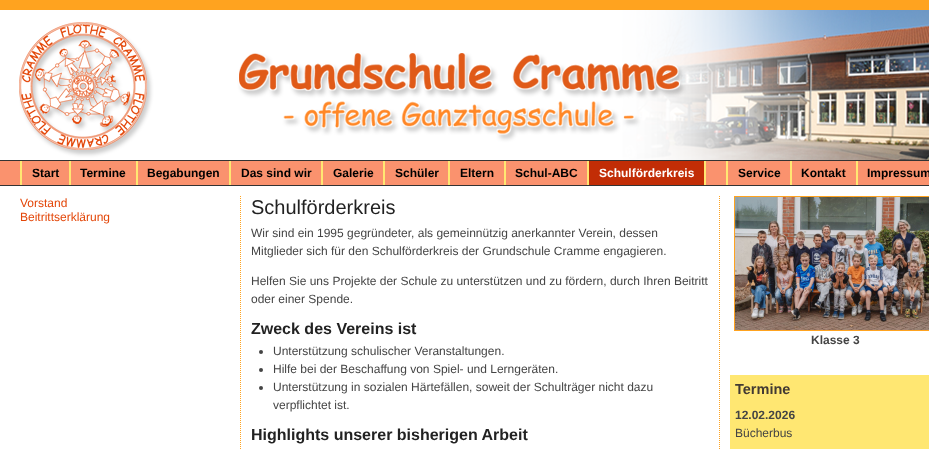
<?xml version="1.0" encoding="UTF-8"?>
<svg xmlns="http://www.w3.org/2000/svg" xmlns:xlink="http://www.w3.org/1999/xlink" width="929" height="449">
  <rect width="100%" height="100%" fill="#ffa31f" />
  <rect y="10" width="929" height="439" fill="#ffffff" />
  <image x="19" y="10" width="910" height="150" xlink:href="image1.png" />
  <rect y="161" width="929" height="24" fill="#fa926e" />
  <rect y="160" width="929" height="1" fill="#333333" />
  <rect y="185" width="929" height="1" fill="#333333" />
  <rect x="704" y="161" width="2" height="24" fill="#ffe772" />
  <rect x="20" y="161" width="2" height="24" fill="#ffe772" />
  <rect x="69" y="161" width="2" height="24" fill="#ffe772" />
  <rect x="136" y="161" width="2" height="24" fill="#ffe772" />
  <rect x="229" y="161" width="2" height="24" fill="#ffe772" />
  <rect x="321" y="161" width="2" height="24" fill="#ffe772" />
  <rect x="383" y="161" width="2" height="24" fill="#ffe772" />
  <rect x="448" y="161" width="2" height="24" fill="#ffe772" />
  <rect x="504" y="161" width="2" height="24" fill="#ffe772" />
  <rect x="587" y="161" width="2" height="24" fill="#ffe772" />
  <rect x="589" y="161" width="115" height="24" fill="#c22d06" />
  <rect x="726" y="161" width="2" height="24" fill="#ffe772" />
  <rect x="790" y="161" width="2" height="24" fill="#ffe772" />
  <rect x="856" y="161" width="2" height="24" fill="#ffe772" />
  <path d="M 719.5 196 v 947" fill="none" stroke="#ffa31f" stroke-dasharray="1 1" />
  <path d="M 240.5 196 v 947" fill="none" stroke="#ffa31f" stroke-dasharray="1 1" />
  <circle cx="261" cy="352" r="2" fill="#444444" />
  <circle cx="261" cy="370" r="2" fill="#444444" />
  <circle cx="261" cy="388" r="2" fill="#444444" />
  <rect x="734.5" y="196.5" width="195" height="134" fill="none" stroke="#ffa31f" />
  <image x="735" y="197" width="194" height="133" xlink:href="image2.png" />
  <rect x="730" y="375" width="199" height="74" fill="#ffe772" />
  <text x="32" y="177" style="font-family: Liberation Sans; font-size: 12px; font-weight: bold; fill: #000000">Start</text>
  <text x="80" y="177" style="font-family: Liberation Sans; font-size: 12px; font-weight: bold; fill: #000000">Termine</text>
  <text x="147" y="177" style="font-family: Liberation Sans; font-size: 12px; font-weight: bold; fill: #000000">Begabungen</text>
  <text x="241" y="177" style="font-family: Liberation Sans; font-size: 12px; font-weight: bold; fill: #000000">Das sind wir</text>
  <text x="333" y="177" style="font-family: Liberation Sans; font-size: 12px; font-weight: bold; fill: #000000">Galerie</text>
  <text x="395" y="177" style="font-family: Liberation Sans; font-size: 12px; font-weight: bold; fill: #000000">Schüler</text>
  <text x="460" y="177" style="font-family: Liberation Sans; font-size: 12px; font-weight: bold; fill: #000000">Eltern</text>
  <text x="515" y="177" style="font-family: Liberation Sans; font-size: 12px; font-weight: bold; fill: #000000">Schul-ABC</text>
  <text x="599" y="177" style="font-family: Liberation Sans; font-size: 12px; font-weight: bold; fill: #ffffff">Schulförderkreis</text>
  <text x="738" y="177" style="font-family: Liberation Sans; font-size: 12px; font-weight: bold; fill: #000000">Service</text>
  <text x="801" y="177" style="font-family: Liberation Sans; font-size: 12px; font-weight: bold; fill: #000000">Kontakt</text>
  <text x="867" y="177" style="font-family: Liberation Sans; font-size: 12px; font-weight: bold; fill: #000000">Impressum</text>
  <text x="20" y="207" style="font-family: Liberation Sans; font-size: 12px; fill: #e34608">Vorstand</text>
  <text x="20" y="221" style="font-family: Liberation Sans; font-size: 12px; fill: #e34608">Beitrittserklärung</text>
  <text x="251" y="214" style="font-family: Liberation Sans; font-size: 20px; fill: #222222">Schulförderkreis</text>
  <text x="251" y="237" style="font-family: Liberation Sans; font-size: 12px; fill: #444444">Wir sind ein 1995 gegründeter, als gemeinnützig anerkannter Verein, dessen</text>
  <text x="251" y="255" style="font-family: Liberation Sans; font-size: 12px; fill: #444444">Mitglieder sich für den Schulförderkreis der Grundschule Cramme engagieren.</text>
  <text x="251" y="285" style="font-family: Liberation Sans; font-size: 12px; fill: #444444">Helfen Sie uns Projekte der Schule zu unterstützen und zu fördern, durch Ihren Beitritt</text>
  <text x="251" y="303" style="font-family: Liberation Sans; font-size: 12px; fill: #444444">oder einer Spende.</text>
  <text x="251" y="334" style="font-family: Liberation Sans; font-size: 16px; font-weight: bold; fill: #222222">Zweck des Vereins ist</text>
  <text x="273" y="355" style="font-family: Liberation Sans; font-size: 12px; fill: #444444">Unterstützung schulischer Veranstaltungen.</text>
  <text x="273" y="373" style="font-family: Liberation Sans; font-size: 12px; fill: #444444">Hilfe bei der Beschaffung von Spiel- und Lerngeräten.</text>
  <text x="273" y="391" style="font-family: Liberation Sans; font-size: 12px; fill: #444444">Unterstützung in sozialen Härtefällen, soweit der Schulträger nicht dazu</text>
  <text x="273" y="409" style="font-family: Liberation Sans; font-size: 12px; fill: #444444">verpflichtet ist.</text>
  <text x="251" y="440" style="font-family: Liberation Sans; font-size: 16px; font-weight: bold; fill: #222222">Highlights unserer bisherigen Arbeit</text>
  <text x="811" y="344" style="font-family: Liberation Sans; font-size: 12px; font-weight: bold; fill: #444444">Klasse 3</text>
  <text x="735" y="394" style="font-family: Liberation Sans; font-size: 14.5px; font-weight: bold; fill: #423a33">Termine</text>
  <text x="735" y="419" style="font-family: Liberation Sans; font-size: 12px; font-weight: bold; fill: #444444">12.02.2026</text>
  <text x="735" y="437" style="font-family: Liberation Sans; font-size: 12px; fill: #444444">Bücherbus</text>
</svg>
